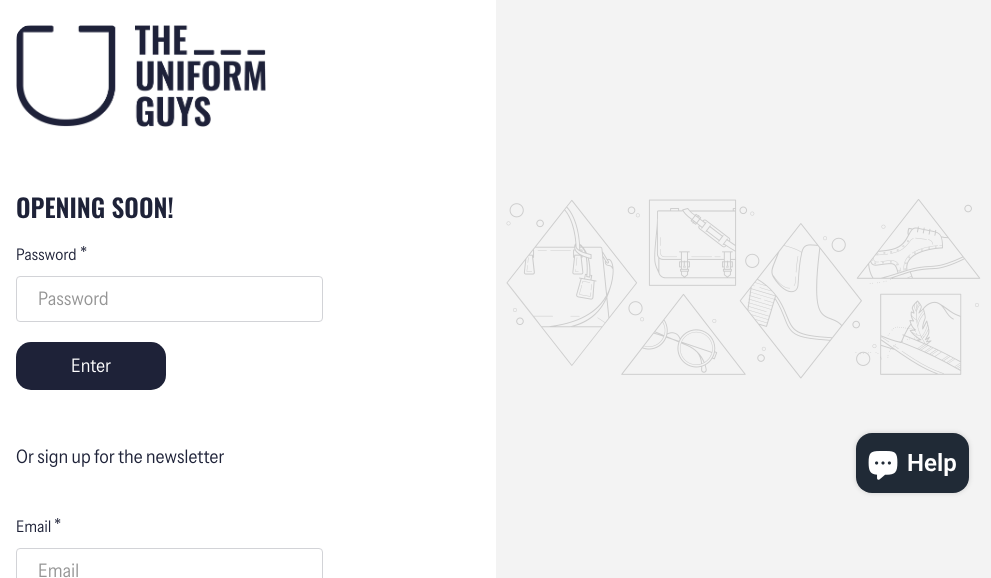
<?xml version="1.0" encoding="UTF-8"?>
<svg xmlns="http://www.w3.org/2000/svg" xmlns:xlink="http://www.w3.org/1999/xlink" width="991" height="578">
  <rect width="100%" height="100%" fill="#ffffff" />
  <image x="16" y="25" width="250" height="102" xlink:href="image1.png" />
  <image x="17" y="248" width="59" height="13" xlink:href="image2.png" />
  <image x="81" y="246" width="6" height="6" xlink:href="image3.png" />
  <rect x="16.5" y="276.5" width="306" height="45" rx="3.5" fill="none" stroke="#d2d3d7" />
  <image x="39" y="291" width="69" height="15" xlink:href="image4.png" />
  <rect x="16" y="342" width="150" height="48" rx="15" fill="#1e2238" />
  <image x="72" y="358" width="39" height="15" xlink:href="image5.png" />
  <image x="16" y="449" width="208" height="18" xlink:href="image6.png" />
  <image x="17" y="520" width="34" height="13" xlink:href="image7.png" />
  <image x="55" y="518" width="6" height="6" xlink:href="image3.png" />
  <rect x="16.5" y="548.5" width="306" height="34" rx="3.5" fill="none" stroke="#d2d3d7" />
  <image x="39" y="563" width="39" height="15" xlink:href="image8.png" />
  <rect x="496" width="495" height="578" fill="#f3f3f3" />
  <image x="506" y="199" width="475" height="180" xlink:href="image9.png" />
  <rect x="856" y="433" width="113" height="60" rx="16" fill="#000000" fill-opacity="0.15" filter="blur(2.5px)" />
  <rect x="856" y="433" width="113" height="60" rx="16" fill="#202a36" />
  <image x="868" y="451" width="30" height="29" xlink:href="image10.png" />
  <text x="16" y="218" style="font-family: Oswald; font-size: 25.25px; font-weight: 600; fill: #1e2238">OPENING SOON!</text>
  <text x="907" y="471" style="font-family: Roboto; font-size: 24px; font-weight: 600; fill: #ffffff">Help</text>
</svg>
